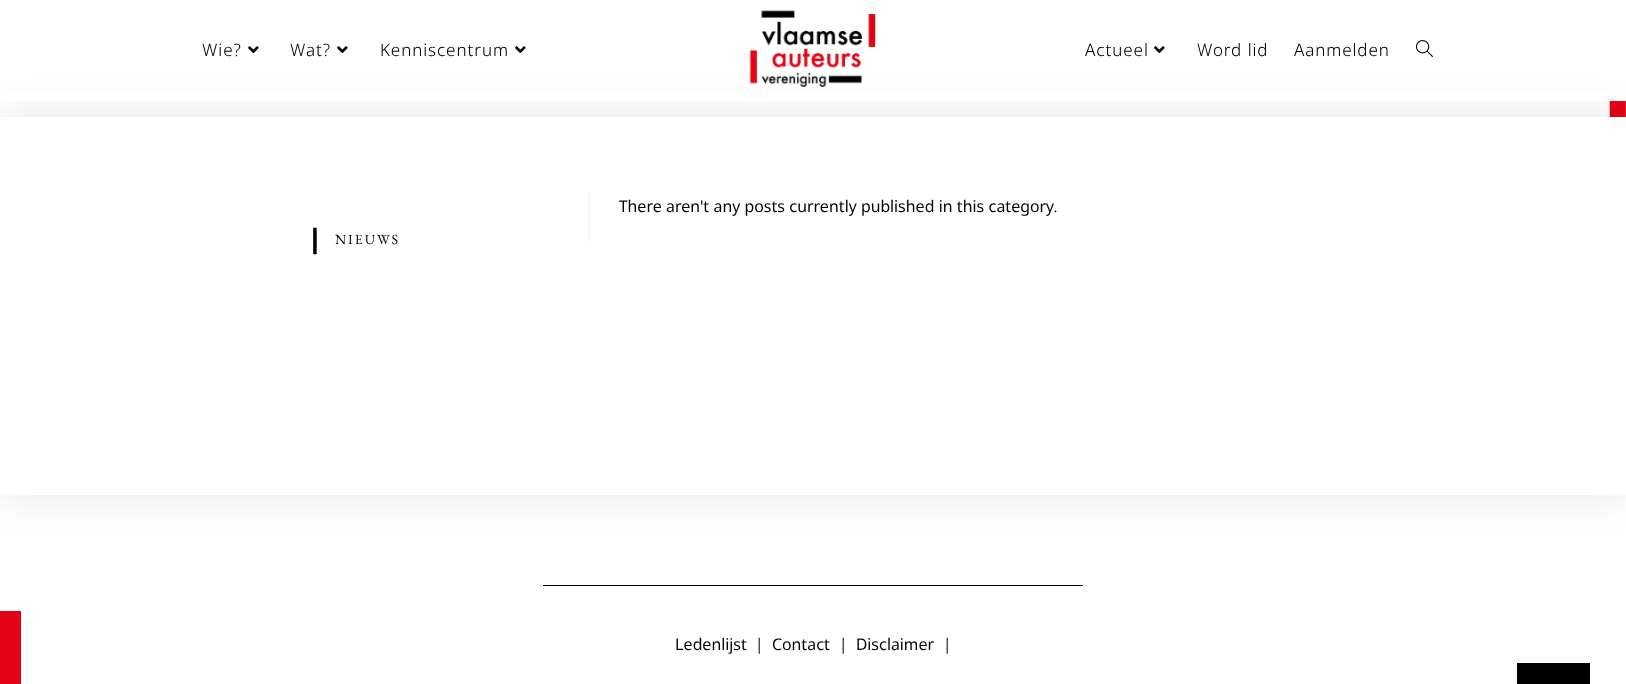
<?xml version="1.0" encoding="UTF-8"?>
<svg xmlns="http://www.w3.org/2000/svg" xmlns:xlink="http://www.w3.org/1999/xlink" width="1626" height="684">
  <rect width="100%" height="100%" fill="#ffffff" />
  <image x="378" y="101" width="1248" height="16" xlink:href="image1.png" />
  <rect y="117" width="1626" height="378" fill="#000000" fill-opacity="0.1" filter="blur(20px)" />
  <rect y="91" width="1626" height="10" fill="#ffffff" />
  <image x="248" y="46" width="11" height="7" xlink:href="image2.png" />
  <image x="337" y="46" width="11" height="7" xlink:href="image2.png" />
  <image x="515" y="46" width="11" height="7" xlink:href="image2.png" />
  <image x="749" y="10" width="127" height="77" xlink:href="image3.png" />
  <image x="1154" y="46" width="11" height="7" xlink:href="image2.png" />
  <image x="1416" y="40" width="17" height="17" xlink:href="image4.png" />
  <rect y="117" width="1626" height="378" fill="#ffffff" />
  <rect x="588" y="192" width="1" height="49" fill="#f1f1f1" />
  <rect y="611" width="21" height="73" fill="#e40417" />
  <rect x="543" y="585" width="540" height="1" fill="#000000" />
  <rect x="1517" y="663" width="73" height="21" fill="#000000" />
  <text x="202" y="56" style="font-family: Noto Sans Hebrew; font-size: 17px; font-weight: 300; letter-spacing: 0.9px; fill: #000000">Wie?</text>
  <text x="290" y="56" style="font-family: Noto Sans Hebrew; font-size: 17px; font-weight: 300; letter-spacing: 0.9px; fill: #000000">Wat?</text>
  <text x="380" y="56" style="font-family: Noto Sans Hebrew; font-size: 17px; font-weight: 300; letter-spacing: 0.9px; fill: #000000">Kenniscentrum</text>
  <text x="1085" y="56" style="font-family: Noto Sans Hebrew; font-size: 17px; font-weight: 300; letter-spacing: 0.9px; fill: #000000">Actueel</text>
  <text x="1197" y="56" style="font-family: Noto Sans Hebrew; font-size: 17px; font-weight: 300; letter-spacing: 0.9px; fill: #000000">Word lid</text>
  <text x="1294" y="56" style="font-family: Noto Sans Hebrew; font-size: 17px; font-weight: 300; letter-spacing: 0.9px; fill: #000000">Aanmelden</text>
  <text x="619" y="212" style="font-family: Noto Sans Hebrew; font-size: 16px; fill: #000000">There aren't any posts currently published in this category.</text>
  <text x="311" y="248" style="font-family: Liberation Sans; font-size: 28px; font-weight: bold; letter-spacing: -2px; fill: #000000">|</text>
  <text x="335" y="244" style="font-family: EB Garamond; font-size: 14px; letter-spacing: 2px; fill: #000000">NIEUWS</text>
  <text x="675" y="650" style="font-family: Noto Sans Hebrew; font-size: 16px; fill: #000000">Ledenlijst</text>
  <text x="755" y="650" style="font-family: Noto Sans Hebrew; font-size: 16px; fill: #000000">|</text>
  <text x="772" y="650" style="font-family: Noto Sans Hebrew; font-size: 16px; fill: #000000">Contact</text>
  <text x="839" y="650" style="font-family: Noto Sans Hebrew; font-size: 16px; fill: #000000">|</text>
  <text x="856" y="650" style="font-family: Noto Sans Hebrew; font-size: 16px; fill: #000000">Disclaimer</text>
  <text x="943" y="650" style="font-family: Noto Sans Hebrew; font-size: 16px; fill: #000000">|</text>
</svg>
